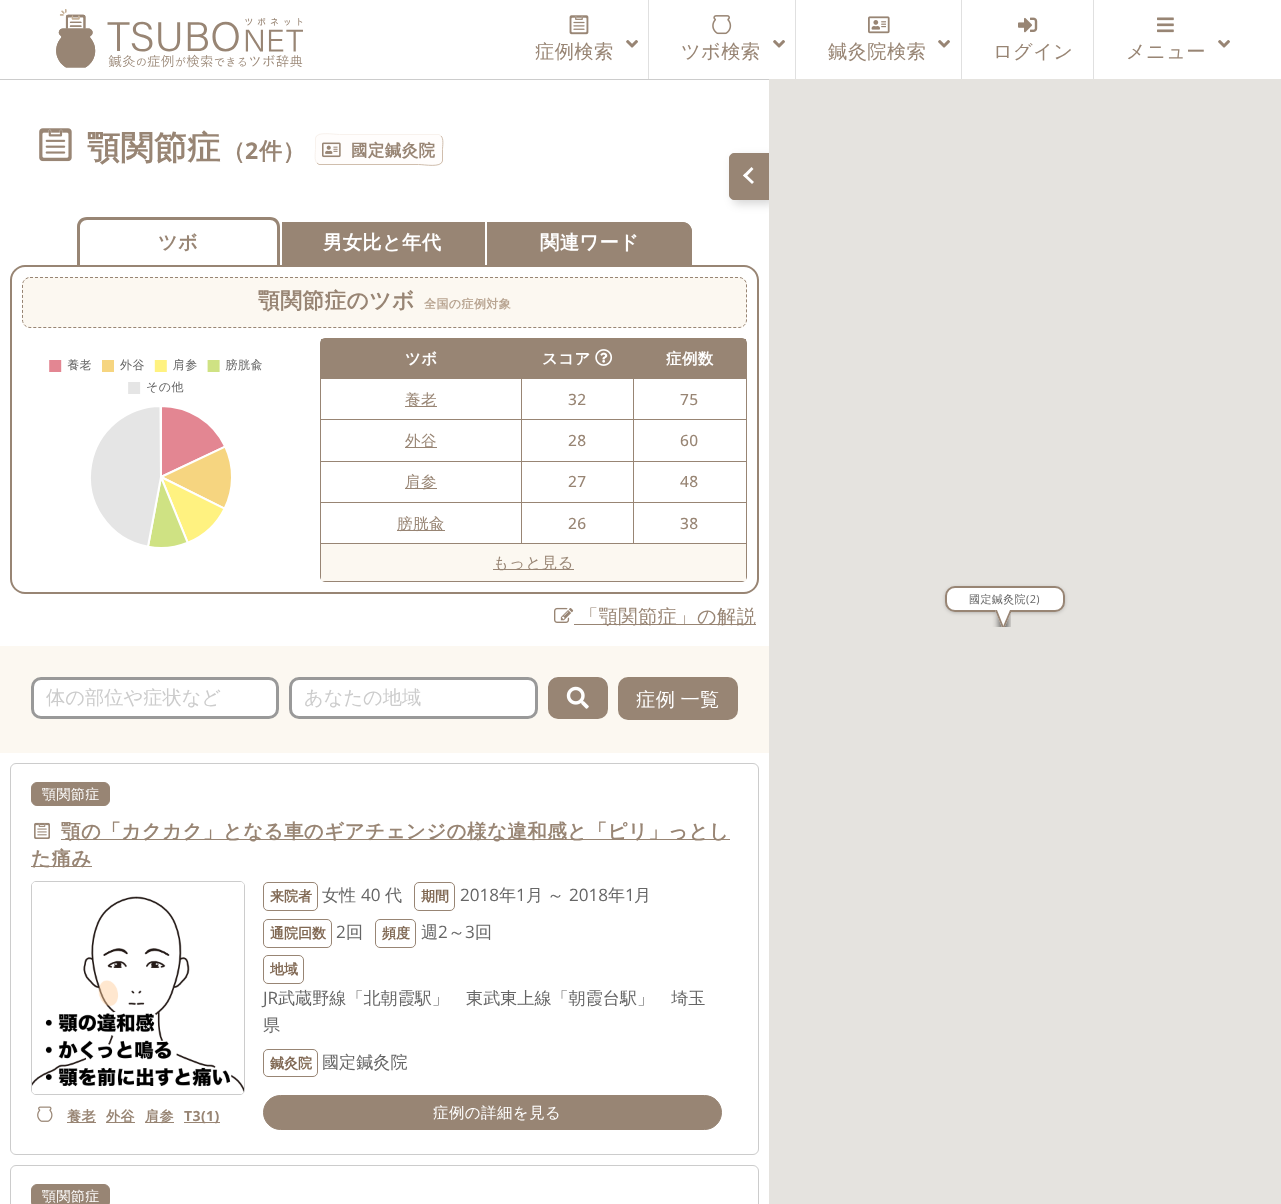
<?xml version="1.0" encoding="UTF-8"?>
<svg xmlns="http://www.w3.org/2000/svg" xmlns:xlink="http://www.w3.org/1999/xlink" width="1281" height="1204">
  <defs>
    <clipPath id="clip1"><rect x="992" y="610" width="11" height="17" /></clipPath>
    <clipPath id="clip2"><rect x="992" y="610" width="11" height="17" /></clipPath>
    <clipPath id="clip3"><rect x="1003" y="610" width="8" height="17" /></clipPath>
    <clipPath id="clip4"><rect x="1003" y="610" width="8" height="17" /></clipPath>
  </defs>
  <rect width="100%" height="100%" fill="#ffffff" />
  <rect y="79" width="769" height="1" fill="#cccccc" />
  <image x="56" y="9" width="247" height="59" xlink:href="image1.png" />
  <image x="569" y="15" width="20" height="20" xlink:href="image2.png" />
  <image x="626" y="40" width="12" height="8" xlink:href="image3.png" />
  <rect x="648" width="1" height="79" fill="#e0e0e0" />
  <image x="712" y="15" width="20" height="20" xlink:href="image4.png" />
  <image x="773" y="40" width="12" height="8" xlink:href="image3.png" />
  <rect x="795" width="1" height="79" fill="#e0e0e0" />
  <image x="868" y="16" width="22" height="18" xlink:href="image5.png" />
  <image x="938" y="40" width="12" height="8" xlink:href="image3.png" />
  <rect x="961" width="1" height="79" fill="#e0e0e0" />
  <image x="1018" y="17" width="20" height="16" xlink:href="image6.png" />
  <rect x="1093" width="1" height="79" fill="#e0e0e0" />
  <image x="1157" y="17" width="17" height="16" xlink:href="image7.png" />
  <image x="1218" y="40" width="12" height="8" xlink:href="image3.png" />
  <image x="39" y="128" width="33" height="34" xlink:href="image8.png" />
  <rect x="315" y="134" width="128" height="31" rx="5" fill="#fffdfc" />
  <path d="M 441 136 c 3 2.5 1.5 10.5 1.5 13.5 v 11.5 c -1.5 7 -18 3.5 -24 3.5 h -99.5 l -2 -1.5" fill="none" stroke="#d0bead" />
  <path d="M 317 163 c -3 -2.5 -1.5 -10.5 -1.5 -13.5 v -11.5 c 1.5 -7 18 -3.5 24 -3.5 h 99.5 l 2 1.5" fill="none" stroke="#f8f2ed" />
  <image x="322" y="142" width="19" height="16" xlink:href="image9.png" />
  <path d="M 87 217 h 183 c 6 0 10 4 10 10 v 38 h -203 v -38 c 0 -6 4 -10 10 -10 z m 0 3 h 183 c 4 0 7 3 7 7 v 38 h -197 v -38 c 0 -4 3 -7 7 -7 z" fill="#988574" fill-rule="evenodd" />
  <rect x="282" y="222" width="203" height="43" fill="#988574" />
  <path d="M 487 222 h 195 c 5.5 0 10 4.5 10 10 v 34 h -205 z" fill="#988574" />
  <path d="M 487 222 h 195 c 6 0 10 4 10 10 v 34 h -205 z m 3 3 h 192 c 4 0 7 3 7 7 v 34 h -199 z" fill="#988574" fill-rule="evenodd" />
  <path d="M 25 265 h 719 c 8 0 15 7 15 15 v 48 h -749 v -48 c 0 -8 7 -15 15 -15 z m 0 2 h 719 c 7 0 13 6 13 13 v 48 h -745 v -48 c 0 -7 6 -13 13 -13 z" fill="#988574" fill-rule="evenodd" />
  <rect x="22" y="277" width="725" height="51" rx="8" fill="#fcf8f1" />
  <path d="M 30 277.5 h 709 c 4 0 7.5 3.5 7.5 7.5 v 35 c 0 4 -3.5 7.5 -7.5 7.5 h -709 c -4 0 -7.5 -3.5 -7.5 -7.5 v -35 c 0 -4 3.5 -7.5 7.5 -7.5 z" fill="none" stroke="#988574" stroke-dasharray="3 2" />
  <path d="M 10 328 h 749 v 251 c 0 8 -7 15 -15 15 h -719 c -8 0 -15 -7 -15 -15 z m 2 0 h 745 v 251 c 0 7 -6 13 -13 13 h -719 c -7 0 -13 -6 -13 -13 z" fill="#988574" fill-rule="evenodd" />
  <image x="49" y="358" width="213" height="189" xlink:href="image10.png" />
  <rect x="320.5" y="338.5" width="426" height="243" rx="4.5" fill="none" stroke="#988574" />
  <rect x="321" y="339" width="425" height="40" fill="#988574" />
  <image x="595" y="349" width="18" height="17" xlink:href="image11.png" />
  <rect x="521" y="379" width="1" height="164" fill="#988574" />
  <rect x="321" y="419" width="201" height="1" fill="#988574" />
  <rect x="405" y="406" width="32" height="1" fill="#988574" />
  <rect x="633" y="379" width="1" height="164" fill="#988574" />
  <rect x="522" y="419" width="224" height="1" fill="#988574" />
  <rect x="321" y="461" width="425" height="1" fill="#988574" />
  <rect x="405" y="447" width="32" height="1" fill="#988574" />
  <rect x="321" y="502" width="425" height="1" fill="#988574" />
  <rect x="405" y="488" width="32" height="1" fill="#988574" />
  <rect x="397" y="530" width="48" height="1" fill="#988574" />
  <rect x="321" y="543" width="425" height="1" fill="#988574" />
  <rect x="321" y="544" width="425" height="37" fill="#fcf8f1" />
  <rect x="493" y="569" width="81" height="1" fill="#988574" />
  <rect x="733" y="157" width="42" height="47" rx="5" fill="#000000" fill-opacity="0.16" filter="blur(5px)" />
  <path d="M 734 153.5 h 36.5 v 46 h -36.5 c -2.5 0 -4.5 -2 -4.5 -4.5 v -37 c 0 -2.5 2 -4.5 4.5 -4.5 z" fill="#988574" stroke="#988574" />
  <path d="M 752 184 l -9 -8.5 l 2 -2 l 9 8.5 z" fill="#ffffff" />
  <path d="M 745.5 177.5 l -2.5 -2 l 8.5 -8.5 l 2 2 z" fill="#ffffff" />
  <rect x="769" y="79" width="512" height="1125" fill="#e5e3df" />
  <rect x="946" y="588" width="118" height="24" rx="9" fill="#000000" fill-opacity="0.3" filter="blur(2px)" />
  <rect x="946" y="587" width="118" height="24" rx="9" fill="#ffffff" stroke="#988574" stroke-width="2" />
  <g clip-path="url(#clip1)">
    <rect x="999" y="611" width="10" height="20" fill="#000000" fill-opacity="0.6" filter="blur(3px)" />
  </g>
  <g clip-path="url(#clip2)">
    <path d="M 995 610 h 10 l 8 20 h -10 z" fill="#ffffff" />
    <path d="M 995 610 h 2 l 8 20 h -2 z" fill="#988574" />
  </g>
  <g clip-path="url(#clip3)">
    <rect x="998" y="611" width="10" height="20" fill="#000000" fill-opacity="0.6" filter="blur(3px)" />
  </g>
  <g clip-path="url(#clip4)">
    <path d="M 1002 610 h 10 l -8.5 20 h -10 z" fill="#ffffff" />
    <path d="M 1010 610 h 2 l -8.5 20 h -2 z" fill="#988574" />
  </g>
  <image x="554" y="607" width="20" height="16" xlink:href="image12.png" />
  <rect x="574" y="624" width="182" height="1" fill="#988574" />
  <rect y="646" width="769" height="107" fill="#fcf8f1" />
  <rect x="32.5" y="678.5" width="245" height="39" rx="8.5" fill="#ffffff" stroke="#999999" stroke-width="3" />
  <rect x="290.5" y="678.5" width="246" height="39" rx="8.5" fill="#ffffff" stroke="#999999" stroke-width="3" />
  <rect x="548" y="677" width="60" height="38" rx="8" fill="#ffffff" />
  <rect x="549.5" y="678.5" width="57" height="39" rx="8.5" fill="#988574" stroke="#988574" stroke-width="3" />
  <image x="566" y="686" width="23" height="23" xlink:href="image13.png" />
  <rect x="619.5" y="678.5" width="117" height="40" rx="8.5" fill="#988574" stroke="#988574" stroke-width="3" />
  <rect x="10.5" y="763.5" width="748" height="391" rx="5.5" fill="none" stroke="#cccccc" />
  <rect x="31.5" y="782.5" width="78" height="23" rx="5.5" fill="#988574" stroke="#988574" />
  <image x="34" y="822" width="16" height="17" xlink:href="image14.png" />
  <rect x="61" y="839" width="669" height="1" fill="#988574" />
  <rect x="31" y="866" width="61" height="1" fill="#988574" />
  <rect x="31.5" y="881.5" width="213" height="213" rx="4.5" fill="none" stroke="#cccccc" />
  <image x="32" y="882" width="212" height="212" xlink:href="image15.png" />
  <image x="37" y="1106" width="16" height="16" xlink:href="image16.png" />
  <rect x="67" y="1122" width="29" height="1" fill="#988574" />
  <rect x="106" y="1122" width="29" height="1" fill="#988574" />
  <rect x="145" y="1122" width="29" height="1" fill="#988574" />
  <rect x="184" y="1122" width="36" height="1" fill="#988574" />
  <rect x="263.5" y="882.5" width="54" height="28" rx="4.5" fill="none" stroke="#988574" />
  <rect x="414.5" y="882.5" width="40" height="28" rx="4.5" fill="none" stroke="#988574" />
  <rect x="263.5" y="919.5" width="68" height="28" rx="4.5" fill="none" stroke="#988574" />
  <rect x="375.5" y="919.5" width="40" height="28" rx="4.5" fill="none" stroke="#988574" />
  <rect x="263.5" y="955.5" width="40" height="28" rx="4.5" fill="none" stroke="#988574" />
  <rect x="263.5" y="1049.5" width="54" height="27" rx="4.5" fill="none" stroke="#988574" />
  <rect x="263.5" y="1095.5" width="458" height="34" rx="17" fill="#988574" stroke="#988574" />
  <rect x="10.5" y="1165.5" width="748" height="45" rx="5.5" fill="none" stroke="#cccccc" />
  <rect x="31.5" y="1184.5" width="78" height="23" rx="5.5" fill="#988574" stroke="#988574" />
  <text x="535" y="58" style="font-family: WenQuanYi Zen Hei; font-size: 19.25px; font-weight: 500; letter-spacing: 0.4px; fill: #988574">症例検索</text>
  <text x="681" y="58" style="font-family: WenQuanYi Zen Hei; font-size: 19.25px; font-weight: 500; letter-spacing: 0.4px; fill: #988574">ツボ検索</text>
  <text x="828" y="58" style="font-family: WenQuanYi Zen Hei; font-size: 19.25px; font-weight: 500; letter-spacing: 0.4px; fill: #988574">鍼灸院検索</text>
  <text x="993" y="58" style="font-family: WenQuanYi Zen Hei; font-size: 19.25px; font-weight: 500; letter-spacing: 0.4px; fill: #988574">ログイン</text>
  <text x="1126" y="58" style="font-family: WenQuanYi Zen Hei; font-size: 19.25px; font-weight: 500; letter-spacing: 0.4px; fill: #988574">メニュー</text>
  <text x="87" y="159" style="font-family: WenQuanYi Zen Hei; font-size: 33px; font-weight: bold; letter-spacing: 0.4px; fill: #988574">顎関節症</text>
  <text x="222" y="159" style="font-family: WenQuanYi Zen Hei; font-size: 23px; font-weight: bold; letter-spacing: 0.4px; fill: #988574">（</text>
  <text x="245" y="159" style="font-family: Open Sans; font-size: 23px; font-weight: bold; letter-spacing: 0.4px; fill: #988574">2</text>
  <text x="259" y="159" style="font-family: WenQuanYi Zen Hei; font-size: 23px; font-weight: bold; letter-spacing: 0.4px; fill: #988574">件）</text>
  <text x="351" y="156" style="font-family: WenQuanYi Zen Hei; font-size: 16.5px; font-weight: bold; letter-spacing: 0.4px; fill: #988574">國定鍼灸院</text>
  <text x="158" y="249" style="font-family: WenQuanYi Zen Hei; font-size: 19.25px; font-weight: bold; letter-spacing: 0.4px; fill: #988574">ツボ</text>
  <text x="323" y="249" style="font-family: WenQuanYi Zen Hei; font-size: 19.25px; font-weight: bold; letter-spacing: 0.4px; fill: #ffffff">男女比と年代</text>
  <text x="540" y="249" style="font-family: WenQuanYi Zen Hei; font-size: 19.25px; font-weight: bold; letter-spacing: 0.4px; fill: #ffffff">関連ワード</text>
  <text x="258" y="308" style="font-family: WenQuanYi Zen Hei; font-size: 21.75px; font-weight: bold; letter-spacing: 0.4px; fill: #988574">顎関節症のツボ</text>
  <text x="424" y="308" style="font-family: WenQuanYi Zen Hei; font-size: 12px; font-weight: bold; letter-spacing: 0.4px; fill: #b8a491">全国の症例対象</text>
  <text x="405" y="364" style="font-family: WenQuanYi Zen Hei; font-size: 15.5px; font-weight: bold; letter-spacing: 0.4px; fill: #ffffff">ツボ</text>
  <text x="542" y="364" style="font-family: WenQuanYi Zen Hei; font-size: 15.5px; font-weight: bold; letter-spacing: 0.4px; fill: #ffffff">スコア</text>
  <text x="666" y="364" style="font-family: WenQuanYi Zen Hei; font-size: 15.5px; font-weight: bold; letter-spacing: 0.4px; fill: #ffffff">症例数</text>
  <text x="405" y="405" style="font-family: WenQuanYi Zen Hei; font-size: 15.5px; font-weight: 500; letter-spacing: 0.4px; fill: #988574">養老</text>
  <text x="568" y="405" style="font-family: Open Sans; font-size: 15.5px; font-weight: 500; letter-spacing: 0.4px; fill: #988574">32</text>
  <text x="680" y="405" style="font-family: Open Sans; font-size: 15.5px; font-weight: 500; letter-spacing: 0.4px; fill: #988574">75</text>
  <text x="405" y="446" style="font-family: WenQuanYi Zen Hei; font-size: 15.5px; font-weight: 500; letter-spacing: 0.4px; fill: #988574">外谷</text>
  <text x="568" y="446" style="font-family: Open Sans; font-size: 15.5px; font-weight: 500; letter-spacing: 0.4px; fill: #988574">28</text>
  <text x="680" y="446" style="font-family: Open Sans; font-size: 15.5px; font-weight: 500; letter-spacing: 0.4px; fill: #988574">60</text>
  <text x="405" y="487" style="font-family: WenQuanYi Zen Hei; font-size: 15.5px; font-weight: 500; letter-spacing: 0.4px; fill: #988574">肩参</text>
  <text x="568" y="487" style="font-family: Open Sans; font-size: 15.5px; font-weight: 500; letter-spacing: 0.4px; fill: #988574">27</text>
  <text x="680" y="487" style="font-family: Open Sans; font-size: 15.5px; font-weight: 500; letter-spacing: 0.4px; fill: #988574">48</text>
  <text x="397" y="529" style="font-family: WenQuanYi Zen Hei; font-size: 15.5px; font-weight: 500; letter-spacing: 0.4px; fill: #988574">膀胱兪</text>
  <text x="568" y="529" style="font-family: Open Sans; font-size: 15.5px; font-weight: 500; letter-spacing: 0.4px; fill: #988574">26</text>
  <text x="680" y="529" style="font-family: Open Sans; font-size: 15.5px; font-weight: 500; letter-spacing: 0.4px; fill: #988574">38</text>
  <text x="493" y="568" style="font-family: WenQuanYi Zen Hei; font-size: 15.5px; font-weight: 500; letter-spacing: 0.4px; fill: #988574">もっと見る</text>
  <text x="969" y="603" style="font-family: WenQuanYi Zen Hei; font-size: 11px; font-weight: 500; letter-spacing: 0.4px; fill: #666666">國定鍼灸院</text>
  <text x="1026" y="603" style="font-family: Open Sans; font-size: 11px; letter-spacing: 0.4px; fill: #666666">(2)</text>
  <text x="579" y="623" style="font-family: WenQuanYi Zen Hei; font-size: 19.25px; font-weight: 500; letter-spacing: 0.4px; fill: #988574">「顎関節症」の解説</text>
  <text x="46" y="704" style="font-family: WenQuanYi Zen Hei; font-size: 19.25px; font-weight: 500; fill: #cccccc">体の部位や症状など</text>
  <text x="304" y="704" style="font-family: WenQuanYi Zen Hei; font-size: 19.25px; font-weight: 500; fill: #cccccc">あなたの地域</text>
  <text x="636" y="706" word-spacing="-1" style="font-family: WenQuanYi Zen Hei; font-size: 19.25px; font-weight: 500; letter-spacing: 0.4px; fill: #ffffff">症例 一覧</text>
  <text x="42" y="799" style="font-family: WenQuanYi Zen Hei; font-size: 14px; font-weight: 500; letter-spacing: 0.4px; fill: #ffffff">顎関節症</text>
  <text x="61" y="838" style="font-family: WenQuanYi Zen Hei; font-size: 19.55px; font-weight: bold; letter-spacing: 0.4px; fill: #988574">顎の「カクカク」となる車のギアチェンジの様な違和感と「ピリ」っとし</text>
  <text x="31" y="865" style="font-family: WenQuanYi Zen Hei; font-size: 19.55px; font-weight: bold; letter-spacing: 0.4px; fill: #988574">た痛み</text>
  <text x="67" y="1121" style="font-family: WenQuanYi Zen Hei; font-size: 14px; font-weight: bold; letter-spacing: 0.4px; fill: #988574">養老</text>
  <text x="106" y="1121" style="font-family: WenQuanYi Zen Hei; font-size: 14px; font-weight: bold; letter-spacing: 0.4px; fill: #988574">外谷</text>
  <text x="145" y="1121" style="font-family: WenQuanYi Zen Hei; font-size: 14px; font-weight: bold; letter-spacing: 0.4px; fill: #988574">肩参</text>
  <text x="184" y="1121" style="font-family: Open Sans; font-size: 14px; font-weight: bold; letter-spacing: 0.4px; fill: #988574">T3(1)</text>
  <text x="270" y="901" style="font-family: WenQuanYi Zen Hei; font-size: 14px; font-weight: bold; fill: #806853">来院者</text>
  <text x="322" y="901" style="font-family: WenQuanYi Zen Hei; font-size: 17.1px; font-weight: 500; fill: #666666">女性</text>
  <text x="361" y="901" style="font-family: Open Sans; font-size: 17.1px; fill: #666666">40</text>
  <text x="385" y="901" style="font-family: WenQuanYi Zen Hei; font-size: 17.1px; font-weight: 500; fill: #666666">代</text>
  <text x="421" y="901" style="font-family: WenQuanYi Zen Hei; font-size: 14px; font-weight: bold; fill: #806853">期間</text>
  <text x="460" y="901" style="font-family: Open Sans; font-size: 17.1px; fill: #666666">2018</text>
  <text x="499" y="901" style="font-family: WenQuanYi Zen Hei; font-size: 17.1px; font-weight: 500; fill: #666666">年</text>
  <text x="516" y="901" style="font-family: Open Sans; font-size: 17.1px; fill: #666666">1</text>
  <text x="526" y="901" style="font-family: WenQuanYi Zen Hei; font-size: 17.1px; font-weight: 500; fill: #666666">月</text>
  <text x="547" y="901" style="font-family: WenQuanYi Zen Hei; font-size: 17.1px; font-weight: 500; fill: #666666">～</text>
  <text x="569" y="901" style="font-family: Open Sans; font-size: 17.1px; fill: #666666">2018</text>
  <text x="608" y="901" style="font-family: WenQuanYi Zen Hei; font-size: 17.1px; font-weight: 500; fill: #666666">年</text>
  <text x="625" y="901" style="font-family: Open Sans; font-size: 17.1px; fill: #666666">1</text>
  <text x="634" y="901" style="font-family: WenQuanYi Zen Hei; font-size: 17.1px; font-weight: 500; fill: #666666">月</text>
  <text x="270" y="938" style="font-family: WenQuanYi Zen Hei; font-size: 14px; font-weight: bold; fill: #806853">通院回数</text>
  <text x="336" y="938" style="font-family: Open Sans; font-size: 17.1px; fill: #666666">2</text>
  <text x="346" y="938" style="font-family: WenQuanYi Zen Hei; font-size: 17.1px; font-weight: 500; fill: #666666">回</text>
  <text x="382" y="938" style="font-family: WenQuanYi Zen Hei; font-size: 14px; font-weight: bold; fill: #806853">頻度</text>
  <text x="421" y="938" style="font-family: WenQuanYi Zen Hei; font-size: 17.1px; font-weight: 500; fill: #666666">週</text>
  <text x="438" y="938" style="font-family: Open Sans; font-size: 17.1px; fill: #666666">2</text>
  <text x="448" y="938" style="font-family: WenQuanYi Zen Hei; font-size: 17.1px; font-weight: 500; fill: #666666">～</text>
  <text x="465" y="938" style="font-family: Open Sans; font-size: 17.1px; fill: #666666">3</text>
  <text x="475" y="938" style="font-family: WenQuanYi Zen Hei; font-size: 17.1px; font-weight: 500; fill: #666666">回</text>
  <text x="270" y="974" style="font-family: WenQuanYi Zen Hei; font-size: 14px; font-weight: bold; fill: #806853">地域</text>
  <text x="263" y="1004" style="font-family: Open Sans; font-size: 17.1px; fill: #666666">JR</text>
  <text x="278" y="1004" style="font-family: WenQuanYi Zen Hei; font-size: 17.1px; font-weight: 500; fill: #666666">武蔵野線「北朝霞駅」　東武東上線「朝霞台駅」　埼玉</text>
  <text x="263" y="1031" style="font-family: WenQuanYi Zen Hei; font-size: 17.1px; font-weight: 500; fill: #666666">県</text>
  <text x="270" y="1068" style="font-family: WenQuanYi Zen Hei; font-size: 14px; font-weight: bold; fill: #806853">鍼灸院</text>
  <text x="322" y="1068" style="font-family: WenQuanYi Zen Hei; font-size: 17.1px; font-weight: 500; fill: #666666">國定鍼灸院</text>
  <text x="433" y="1118" style="font-family: WenQuanYi Zen Hei; font-size: 15.5px; font-weight: 500; letter-spacing: 0.4px; fill: #ffffff">症例の詳細を見る</text>
  <text x="42" y="1201" style="font-family: WenQuanYi Zen Hei; font-size: 14px; font-weight: 500; letter-spacing: 0.4px; fill: #ffffff">顎関節症</text>
</svg>
